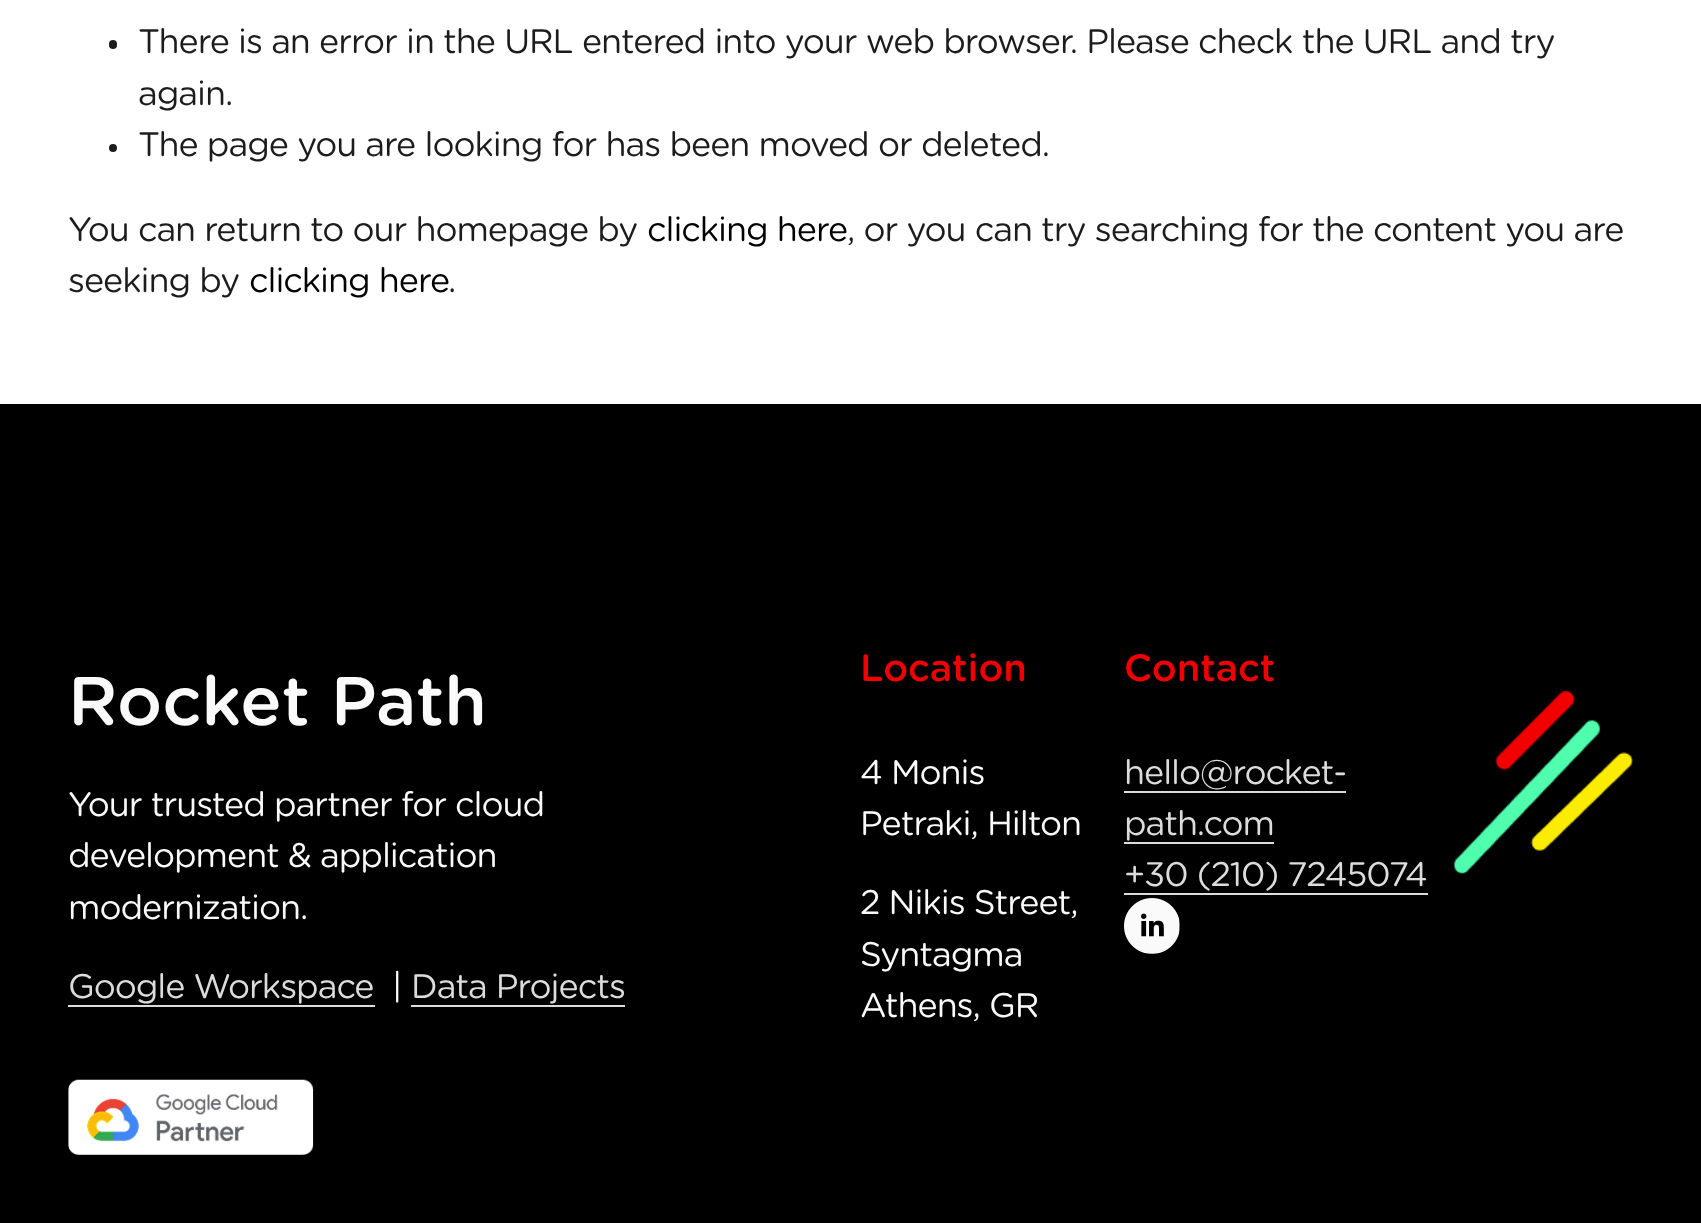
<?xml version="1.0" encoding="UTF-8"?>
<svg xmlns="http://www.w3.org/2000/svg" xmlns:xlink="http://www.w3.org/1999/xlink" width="1701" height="1223">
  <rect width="100%" height="100%" fill="#ffffff" />
  <rect x="109" y="40" width="8" height="9" rx="4" fill="#1c1c1c" />
  <circle cx="113" cy="148" r="4" fill="#1c1c1c" />
  <rect y="404" width="1701" height="819" fill="#000000" />
  <rect x="1124" y="791" width="222" height="2" fill="#dcdcdc" />
  <rect x="1124" y="842" width="150" height="2" fill="#dcdcdc" />
  <rect x="1124" y="893" width="304" height="2" fill="#dcdcdc" />
  <image x="1454" y="691" width="179" height="183" xlink:href="image1.png" />
  <rect x="68" y="1005" width="307" height="2" fill="#dcdcdc" />
  <rect x="411" y="1005" width="214" height="2" fill="#dcdcdc" />
  <image x="1124" y="898" width="56" height="56" xlink:href="image2.png" />
  <image x="68" y="1079" width="246" height="76" xlink:href="image3.png" />
  <text x="138" y="53" style="font-family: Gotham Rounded; font-size: 34.1px; letter-spacing: -1.02px; fill: #1c1c1c">There is an error in the URL entered into your web browser. Please check the URL and try</text>
  <text x="138" y="105" style="font-family: Gotham Rounded; font-size: 34.1px; letter-spacing: -1.02px; fill: #1c1c1c">again.</text>
  <text x="138" y="156" style="font-family: Gotham Rounded; font-size: 34.1px; letter-spacing: -1.02px; fill: #1c1c1c">The page you are looking for has been moved or deleted.</text>
  <text x="68" y="241" style="font-family: Gotham Rounded; font-size: 34.1px; letter-spacing: -1.02px; fill: #1c1c1c">You can return to our homepage by</text>
  <text x="647" y="241" style="font-family: Gotham Rounded; font-size: 34.1px; letter-spacing: -1.02px; fill: #000000">clicking here</text>
  <text x="847" y="241" style="font-family: Gotham Rounded; font-size: 34.1px; letter-spacing: -1.02px; fill: #1c1c1c">, or you can try searching for the</text>
  <text x="1373" y="241" style="font-family: Gotham Rounded; font-size: 34.1px; letter-spacing: -1.02px; fill: #1c1c1c">content you are</text>
  <text x="68" y="292" style="font-family: Gotham Rounded; font-size: 34.1px; letter-spacing: -1.02px; fill: #1c1c1c">seeking by</text>
  <text x="249" y="292" style="font-family: Gotham Rounded; font-size: 34.1px; letter-spacing: -1.02px; fill: #000000">clicking here</text>
  <text x="448" y="292" style="font-family: Gotham Rounded; font-size: 34.1px; letter-spacing: -1.02px; fill: #1c1c1c">.</text>
  <text x="68" y="725" style="font-family: Gotham Rounded; font-size: 68.75px; font-weight: 500; fill: #fafafa">Rocket Path</text>
  <text x="860" y="681" style="font-family: Gotham Rounded; font-size: 38px; font-weight: 500; fill: #f20000">Location</text>
  <text x="860" y="784" style="font-family: Gotham Rounded; font-size: 34.1px; letter-spacing: -1.02px; fill: #fafafa">4 Monis</text>
  <text x="860" y="835" style="font-family: Gotham Rounded; font-size: 34.1px; letter-spacing: -1.02px; fill: #fafafa">Petraki, Hilton</text>
  <text x="860" y="914" style="font-family: Gotham Rounded; font-size: 34.1px; letter-spacing: -1.02px; fill: #fafafa">2 Nikis Street,</text>
  <text x="860" y="966" style="font-family: Gotham Rounded; font-size: 34.1px; letter-spacing: -1.02px; fill: #fafafa">Syntagma</text>
  <text x="860" y="1017" style="font-family: Gotham Rounded; font-size: 34.1px; letter-spacing: -1.02px; fill: #fafafa">Athens, GR</text>
  <text x="1124" y="681" style="font-family: Gotham Rounded; font-size: 38px; font-weight: 500; fill: #f20000">Contact</text>
  <text x="1124" y="784" style="font-family: Gotham Rounded; font-size: 34.1px; letter-spacing: -1.02px; fill: #dcdcdc">hello@rocket-</text>
  <text x="1124" y="835" style="font-family: Gotham Rounded; font-size: 34.1px; letter-spacing: -1.02px; fill: #dcdcdc">path.com</text>
  <text x="1124" y="886" style="font-family: Gotham Rounded; font-size: 34.1px; letter-spacing: -1.02px; fill: #dcdcdc">+30 (210) 7245074</text>
  <text x="68" y="816" style="font-family: Gotham Rounded; font-size: 34.1px; letter-spacing: -1.02px; fill: #fafafa">Your trusted partner for cloud</text>
  <text x="68" y="867" style="font-family: Gotham Rounded; font-size: 34.1px; letter-spacing: -1.02px; fill: #fafafa">development &amp; application</text>
  <text x="68" y="919" style="font-family: Gotham Rounded; font-size: 34.1px; letter-spacing: -1.02px; fill: #fafafa">modernization.</text>
  <text x="68" y="998" style="font-family: Gotham Rounded; font-size: 34.1px; letter-spacing: -1.02px; fill: #dcdcdc">Google Workspace</text>
  <text x="392" y="998" style="font-family: Gotham Rounded; font-size: 34.1px; letter-spacing: -1.02px; fill: #fafafa">|</text>
  <text x="411" y="998" style="font-family: Gotham Rounded; font-size: 34.1px; letter-spacing: -1.02px; fill: #dcdcdc">Data Projects</text>
</svg>
